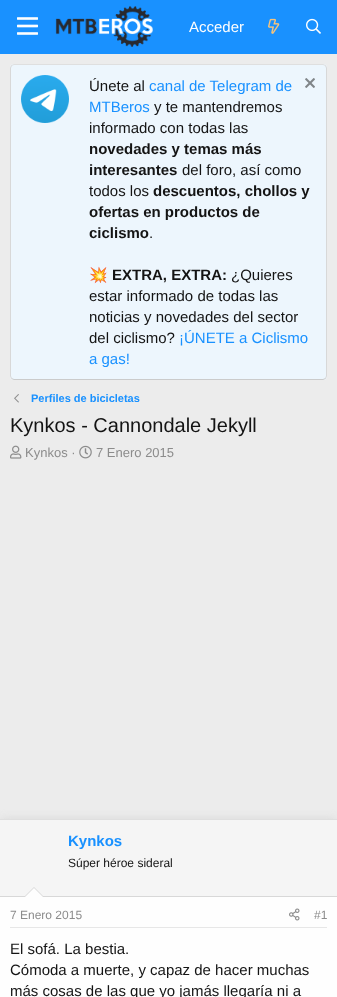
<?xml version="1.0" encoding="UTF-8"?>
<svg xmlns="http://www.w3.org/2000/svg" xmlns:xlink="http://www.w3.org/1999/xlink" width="337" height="997">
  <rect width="100%" height="100%" fill="#ececec" />
  <rect width="337" height="54" fill="#1991ff" />
  <image x="17" y="17" width="21" height="18" xlink:href="image1.png" />
  <image x="55" y="6" width="98" height="41" xlink:href="image2.png" />
  <image x="268" y="18" width="12" height="16" xlink:href="image3.png" />
  <image x="306" y="18" width="15" height="16" xlink:href="image4.png" />
  <rect x="10" y="64" width="317" height="316" rx="4" fill="#edf6fd" />
  <path d="M 11.5 65.5 l 2.5 -1 h 309 l 2.5 1" fill="none" stroke="#dfdfdf" />
  <path d="M 325.5 65.5 l 1 2.5 v 308 l -1 2.5" fill="none" stroke="#d8d8d8" />
  <path d="M 325.5 378.5 l -2.5 1 h -309 l -2.5 -1" fill="none" stroke="#cbcbcb" />
  <path d="M 11.5 378.5 l -1 -2.5 v -308 l 1 -2.5" fill="none" stroke="#d8d8d8" />
  <image x="21" y="75" width="48" height="48" xlink:href="image5.png" />
  <image x="305" y="78" width="10" height="10" xlink:href="image6.png" />
  <image x="14" y="394" width="5" height="9" xlink:href="image7.png" />
  <image x="10" y="445" width="12" height="14" xlink:href="image8.png" />
  <image x="79" y="445" width="13" height="14" xlink:href="image9.png" />
  <rect y="819" width="337" height="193" fill="#d8d8d8" filter="blur(5px)" />
  <rect y="897" width="337" height="100" fill="#fefefe" />
  <rect y="819" width="337" height="1" fill="#dfdfdf" />
  <rect y="820" width="337" height="76" fill="#f5f5f5" />
  <rect y="896" width="337" height="1" fill="#d8d8d8" />
  <path d="M 44 897 h -20 l 10 -10 z" fill="#d8d8d8" />
  <path d="M 43 897 h -18 l 9 -9 z" fill="#fefefe" />
  <rect x="10" y="927" width="317" height="1" fill="#e7e7e7" />
  <image x="289" y="908" width="11" height="13" xlink:href="image10.png" />
  <text x="189" y="32" style="font-family: Liberation Sans; font-size: 15px; fill: #fefefe">Acceder</text>
  <text x="89" y="91" style="font-family: Liberation Sans; font-size: 15px; fill: #141414">Únete al</text>
  <text x="149" y="91" style="font-family: Liberation Sans; font-size: 15px; fill: #1991ff">canal de Telegram de</text>
  <text x="89" y="112" style="font-family: Liberation Sans; font-size: 15px; fill: #1991ff">MTBeros</text>
  <text x="154" y="112" style="font-family: Liberation Sans; font-size: 15px; fill: #141414">y te mantendremos</text>
  <text x="89" y="133" style="font-family: Liberation Sans; font-size: 15px; fill: #141414">informado con todas las</text>
  <text x="89" y="154" style="font-family: Liberation Sans; font-size: 15px; font-weight: bold; fill: #141414">novedades y temas más</text>
  <text x="89" y="175" style="font-family: Liberation Sans; font-size: 15px; font-weight: bold; fill: #141414">interesantes</text>
  <text x="182" y="175" style="font-family: Liberation Sans; font-size: 15px; fill: #141414">del foro, así como</text>
  <text x="89" y="196" style="font-family: Liberation Sans; font-size: 15px; fill: #141414">todos los</text>
  <text x="153" y="196" style="font-family: Liberation Sans; font-size: 15px; font-weight: bold; fill: #141414">descuentos, chollos y</text>
  <text x="89" y="217" style="font-family: Liberation Sans; font-size: 15px; font-weight: bold; fill: #141414">ofertas en productos de</text>
  <text x="89" y="238" style="font-family: Liberation Sans; font-size: 15px; font-weight: bold; fill: #141414">ciclismo</text>
  <text x="149" y="238" style="font-family: Liberation Sans; font-size: 15px; fill: #141414">.</text>
  <text x="89" y="280" style="font-family: Noto Color Emoji; font-size: 15px; fill: #141414">💥</text>
  <text x="112" y="280" style="font-family: Liberation Sans; font-size: 15px; font-weight: bold; fill: #141414">EXTRA, EXTRA:</text>
  <text x="231" y="280" style="font-family: Liberation Sans; font-size: 15px; fill: #141414">¿Quieres</text>
  <text x="89" y="301" style="font-family: Liberation Sans; font-size: 15px; fill: #141414">estar informado de todas las</text>
  <text x="89" y="322" style="font-family: Liberation Sans; font-size: 15px; fill: #141414">noticias y novedades del sector</text>
  <text x="89" y="343" style="font-family: Liberation Sans; font-size: 15px; fill: #141414">del ciclismo?</text>
  <text x="179" y="343" style="font-family: Liberation Sans; font-size: 15px; fill: #1991ff">¡ÚNETE a Ciclismo</text>
  <text x="89" y="364" style="font-family: Liberation Sans; font-size: 15px; fill: #1991ff">a gas!</text>
  <text x="31" y="402" style="font-family: Liberation Sans; font-size: 11px; font-weight: bold; fill: #1991ff">Perfiles de bicicletas</text>
  <text x="10" y="432" style="font-family: Liberation Sans; font-size: 20px; fill: #141414">Kynkos - Cannondale Jekyll</text>
  <text x="25" y="457" style="font-family: Liberation Sans; font-size: 13px; fill: #8c8c8c">Kynkos ·</text>
  <text x="96" y="457" style="font-family: Liberation Sans; font-size: 13px; fill: #8c8c8c">7 Enero 2015</text>
  <text x="68" y="846" style="font-family: Liberation Sans; font-size: 15px; font-weight: bold; fill: #1991ff">Kynkos</text>
  <text x="68" y="867" style="font-family: Liberation Sans; font-size: 12px; fill: #141414">Súper héroe sideral</text>
  <text x="10" y="919" style="font-family: Liberation Sans; font-size: 12px; fill: #8c8c8c">7 Enero 2015</text>
  <text x="314" y="919" style="font-family: Liberation Sans; font-size: 12px; fill: #8c8c8c">#1</text>
  <text x="10" y="954" style="font-family: Liberation Sans; font-size: 15px; fill: #141414">El sofá. La bestia.</text>
  <text x="10" y="975" style="font-family: Liberation Sans; font-size: 15px; fill: #141414">Cómoda a muerte, y capaz de hacer muchas</text>
  <text x="10" y="996" style="font-family: Liberation Sans; font-size: 15px; fill: #141414">más cosas de las que yo jamás llegaría ni a</text>
</svg>
